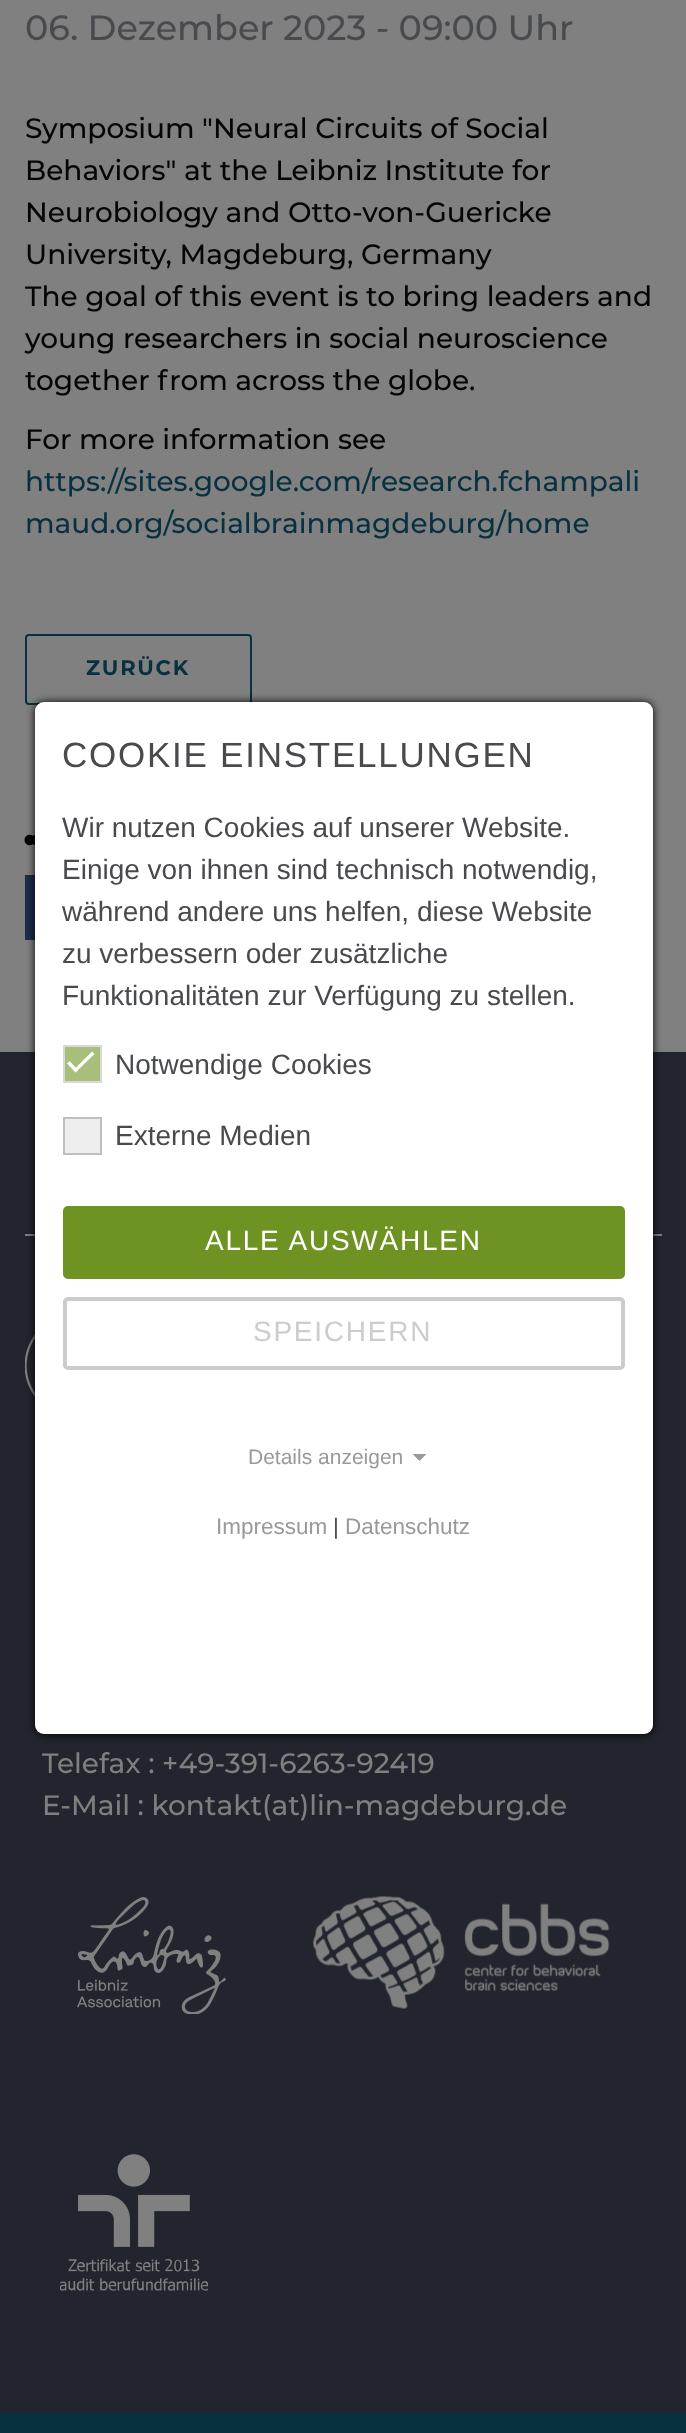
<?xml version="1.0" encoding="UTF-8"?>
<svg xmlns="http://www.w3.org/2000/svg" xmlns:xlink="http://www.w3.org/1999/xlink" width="686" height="2433">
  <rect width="100%" height="100%" fill="#808080" />
  <rect x="26" y="635" width="225" height="69" rx="3" fill="none" stroke="#07313f" stroke-width="2" />
  <image x="24" y="834" width="11" height="12" xlink:href="image1.png" />
  <rect x="25" y="875" width="10" height="65" fill="#1e2d4c" />
  <rect y="1052" width="686" height="1361" fill="#22252d" />
  <rect x="25" y="1234" width="637" height="2" fill="#808080" />
  <image x="25" y="1334" width="10" height="63" xlink:href="image2.png" />
  <image x="77" y="1897" width="149" height="117" xlink:href="image3.png" />
  <image x="313" y="1896" width="297" height="113" xlink:href="image4.png" />
  <image x="60" y="2154" width="148" height="137" xlink:href="image5.png" />
  <rect y="2413" width="686" height="20" fill="#07313f" />
  <rect x="35" y="702" width="618" height="1032" rx="9" fill="#000000" filter="blur(4.5px)" />
  <rect x="35" y="702" width="618" height="1032" rx="9" fill="#ffffff" />
  <rect x="64" y="1046" width="37" height="36" fill="#a9be7a" stroke="#d9d9d9" stroke-width="2" />
  <path d="M 92 1051.5 l 2.5 2.5 l -19 18.5 l -2 -2.5 z" fill="#ffffff" />
  <path d="M 69.5 1061 l 8.5 9 l -2.5 2.5 l -8.5 -9 z" fill="#ffffff" />
  <rect x="64" y="1118" width="37" height="36" fill="#eeeeee" stroke="#bfbfbf" stroke-width="2" />
  <rect x="65" y="1208" width="558" height="69" rx="3" fill="#6f9322" stroke="#6f9322" stroke-width="4" />
  <rect x="65" y="1299" width="558" height="69" rx="3" fill="none" stroke="#cccccc" stroke-width="4" />
  <path d="M 412.5 1454 h 14 l -7 7 z" fill="#999999" />
  <text x="25" y="40" style="font-family: Montserrat; font-size: 35px; font-weight: 500; fill: #484a4e">06. Dezember 2023 - 09:00 Uhr</text>
  <text x="25" y="138" style="font-family: Montserrat; font-size: 28px; font-weight: 500; fill: #050505">Symposium "Neural Circuits of Social</text>
  <text x="25" y="180" style="font-family: Montserrat; font-size: 28px; font-weight: 500; fill: #050505">Behaviors" at the Leibniz Institute for</text>
  <text x="25" y="222" style="font-family: Montserrat; font-size: 28px; font-weight: 500; fill: #050505">Neurobiology and Otto-von-Guericke</text>
  <text x="25" y="264" style="font-family: Montserrat; font-size: 28px; font-weight: 500; fill: #050505">University, Magdeburg, Germany</text>
  <text x="25" y="306" style="font-family: Montserrat; font-size: 28px; font-weight: 500; fill: #050505">The goal of this event is to bring leaders and</text>
  <text x="25" y="348" style="font-family: Montserrat; font-size: 28px; font-weight: 500; fill: #050505">young researchers in social neuroscience</text>
  <text x="25" y="390" style="font-family: Montserrat; font-size: 28px; font-weight: 500; fill: #050505">together from across the globe.</text>
  <text x="25" y="449" style="font-family: Montserrat; font-size: 28px; font-weight: 500; fill: #050505">For more information see</text>
  <text x="25" y="491" style="font-family: Montserrat; font-size: 28px; font-weight: 500; fill: #07313f">https://sites.google.com/research.fchampali</text>
  <text x="25" y="533" style="font-family: Montserrat; font-size: 28px; font-weight: 500; fill: #07313f">maud.org/socialbrainmagdeburg/home</text>
  <text x="86" y="675" style="font-family: Montserrat; font-size: 21px; font-weight: bold; letter-spacing: 1.75px; fill: #07313f">ZURÜCK</text>
  <text x="42" y="1773" style="font-family: Montserrat; font-size: 28px; font-weight: 500; fill: #7f7f7f">Telefax : +49-391-6263-92419</text>
  <text x="42" y="1815" style="font-family: Montserrat; font-size: 28px; font-weight: 500; fill: #7f7f7f">E-Mail : kontakt(at)lin-magdeburg.de</text>
  <text x="62" y="767" style="font-family: Liberation Sans; font-size: 35px; letter-spacing: 1.75px; fill: #484a4e">COOKIE EINSTELLUNGEN</text>
  <text x="62" y="837" style="font-family: Liberation Sans; font-size: 28px; fill: #484a4e">Wir nutzen Cookies auf unserer Website.</text>
  <text x="62" y="879" style="font-family: Liberation Sans; font-size: 28px; fill: #484a4e">Einige von ihnen sind technisch notwendig,</text>
  <text x="62" y="921" style="font-family: Liberation Sans; font-size: 28px; fill: #484a4e">während andere uns helfen, diese Website</text>
  <text x="62" y="963" style="font-family: Liberation Sans; font-size: 28px; fill: #484a4e">zu verbessern oder zusätzliche</text>
  <text x="62" y="1005" style="font-family: Liberation Sans; font-size: 28px; fill: #484a4e">Funktionalitäten zur Verfügung zu stellen.</text>
  <text x="115" y="1074" style="font-family: Liberation Sans; font-size: 28px; fill: #484a4e">Notwendige Cookies</text>
  <text x="115" y="1145" style="font-family: Liberation Sans; font-size: 28px; fill: #484a4e">Externe Medien</text>
  <text x="205" y="1250" style="font-family: Liberation Sans; font-size: 28px; letter-spacing: 1.75px; fill: #ffffff">ALLE AUSWÄHLEN</text>
  <text x="253" y="1341" style="font-family: Liberation Sans; font-size: 28px; letter-spacing: 1.75px; fill: #cccccc">SPEICHERN</text>
  <text x="248" y="1464" style="font-family: Liberation Sans; font-size: 21px; fill: #999999">Details anzeigen</text>
  <text x="216" y="1534" style="font-family: Liberation Sans; font-size: 22.5px; fill: #999999">Impressum</text>
  <text x="333" y="1534" style="font-family: Liberation Sans; font-size: 22.5px; fill: #484a4e">|</text>
  <text x="345" y="1534" style="font-family: Liberation Sans; font-size: 22.5px; fill: #999999">Datenschutz</text>
</svg>
